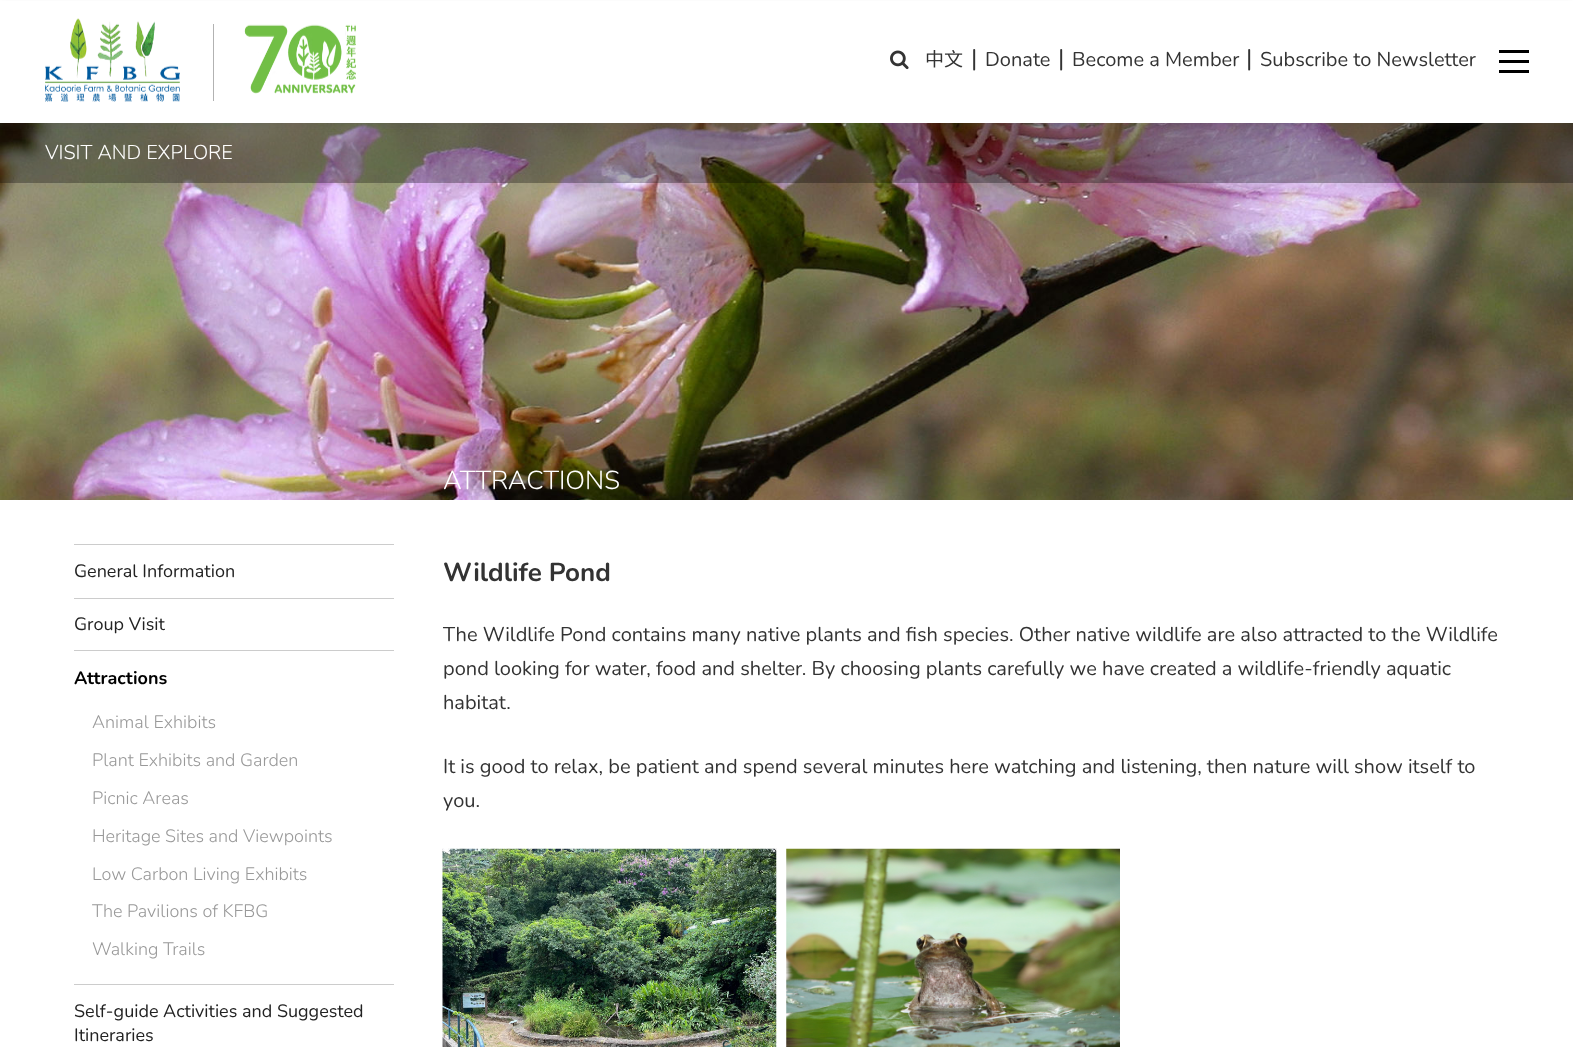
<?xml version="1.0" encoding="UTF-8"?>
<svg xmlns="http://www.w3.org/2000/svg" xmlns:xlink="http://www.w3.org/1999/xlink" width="1573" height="1047">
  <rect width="100%" height="100%" fill="#ffffff" />
  <image x="0" y="123" width="1573" height="377" xlink:href="image4.png" />
  <rect y="123" width="1573" height="60" fill="#000000" fill-opacity="0.3" />
  <rect y="4" width="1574" height="122" fill="#44494c" fill-opacity="0.1" filter="blur(3px)" />
  <rect y="1" width="1573" height="122" fill="#ffffff" />
  <image x="45" y="18" width="135" height="84" xlink:href="image1.png" />
  <rect x="213" y="24" width="1" height="77" fill="#b2b2b2" />
  <image x="244" y="24" width="112" height="70" xlink:href="image2.png" />
  <image x="890" y="50" width="19" height="20" xlink:href="image3.png" />
  <rect x="1499" y="60" width="30" height="3" fill="#000000" />
  <rect x="1499" y="50" width="30" height="3" fill="#000000" />
  <rect x="1499" y="70" width="30" height="3" fill="#000000" />
  <rect x="74" y="544" width="320" height="1" fill="#cccccc" />
  <rect x="74" y="598" width="320" height="1" fill="#cccccc" />
  <rect x="74" y="650" width="320" height="1" fill="#cccccc" />
  <rect x="74" y="984" width="320" height="1" fill="#cccccc" />
  <image x="442" y="848" width="335" height="199" xlink:href="image5.png" />
  <image x="786" y="848" width="334" height="199" xlink:href="image6.png" />
  <text x="925" y="66" style="font-family: Noto Sans CJK HK; font-size: 19px; fill: #333333">中文</text>
  <text x="971" y="66" style="font-family: Nunito; font-size: 24px; fill: #333333">|</text>
  <text x="985" y="66" style="font-family: Nunito; font-size: 20px; fill: #333333">Donate</text>
  <text x="1058" y="66" style="font-family: Nunito; font-size: 24px; fill: #333333">|</text>
  <text x="1072" y="66" style="font-family: Nunito; font-size: 20px; fill: #333333">Become a Member</text>
  <text x="1246" y="66" style="font-family: Nunito; font-size: 24px; fill: #333333">|</text>
  <text x="1260" y="66" style="font-family: Nunito; font-size: 20px; fill: #333333">Subscribe to Newsletter</text>
  <text x="45" y="159" style="font-family: Nunito; font-size: 20px; font-weight: 300; fill: #ffffff">VISIT AND EXPLORE</text>
  <text x="443" y="489" style="font-family: Nunito; font-size: 26px; font-weight: 300; fill: #ffffff">ATTRACTIONS</text>
  <text x="74" y="577" style="font-family: Nunito; font-size: 18px; fill: #222222">General Information</text>
  <text x="74" y="630" style="font-family: Nunito; font-size: 18px; fill: #222222">Group Visit</text>
  <text x="74" y="684" style="font-family: Nunito; font-size: 18px; font-weight: bold; fill: #000000">Attractions</text>
  <text x="92" y="728" style="font-family: Nunito; font-size: 18px; font-weight: 300; fill: #999999">Animal Exhibits</text>
  <text x="92" y="766" style="font-family: Nunito; font-size: 18px; font-weight: 300; fill: #999999">Plant Exhibits and Garden</text>
  <text x="92" y="804" style="font-family: Nunito; font-size: 18px; font-weight: 300; fill: #999999">Picnic Areas</text>
  <text x="92" y="842" style="font-family: Nunito; font-size: 18px; font-weight: 300; fill: #999999">Heritage Sites and Viewpoints</text>
  <text x="92" y="880" style="font-family: Nunito; font-size: 18px; font-weight: 300; fill: #999999">Low Carbon Living Exhibits</text>
  <text x="92" y="917" style="font-family: Nunito; font-size: 18px; font-weight: 300; fill: #999999">The Pavilions of KFBG</text>
  <text x="92" y="955" style="font-family: Nunito; font-size: 18px; font-weight: 300; fill: #999999">Walking Trails</text>
  <text x="74" y="1017" style="font-family: Nunito; font-size: 18px; fill: #222222">Self-guide Activities and Suggested</text>
  <text x="74" y="1041" style="font-family: Nunito; font-size: 18px; fill: #222222">Itineraries</text>
  <text x="443" y="581" style="font-family: Nunito; font-size: 26px; font-weight: bold; fill: #333333">Wildlife Pond</text>
  <text x="443" y="641" style="font-family: Nunito; font-size: 20px; fill: #333333">The Wildlife Pond contains many native plants and fish species. Other native wildlife are also attracted to the Wildlife</text>
  <text x="443" y="675" style="font-family: Nunito; font-size: 20px; fill: #333333">pond looking for water, food and shelter. By choosing plants carefully we have created a wildlife-friendly aquatic</text>
  <text x="443" y="709" style="font-family: Nunito; font-size: 20px; fill: #333333">habitat.</text>
  <text x="443" y="773" style="font-family: Nunito; font-size: 20px; fill: #333333">It is good to relax, be patient and spend several minutes here watching and listening, then nature will show itself to</text>
  <text x="443" y="807" style="font-family: Nunito; font-size: 20px; fill: #333333">you.</text>
</svg>
